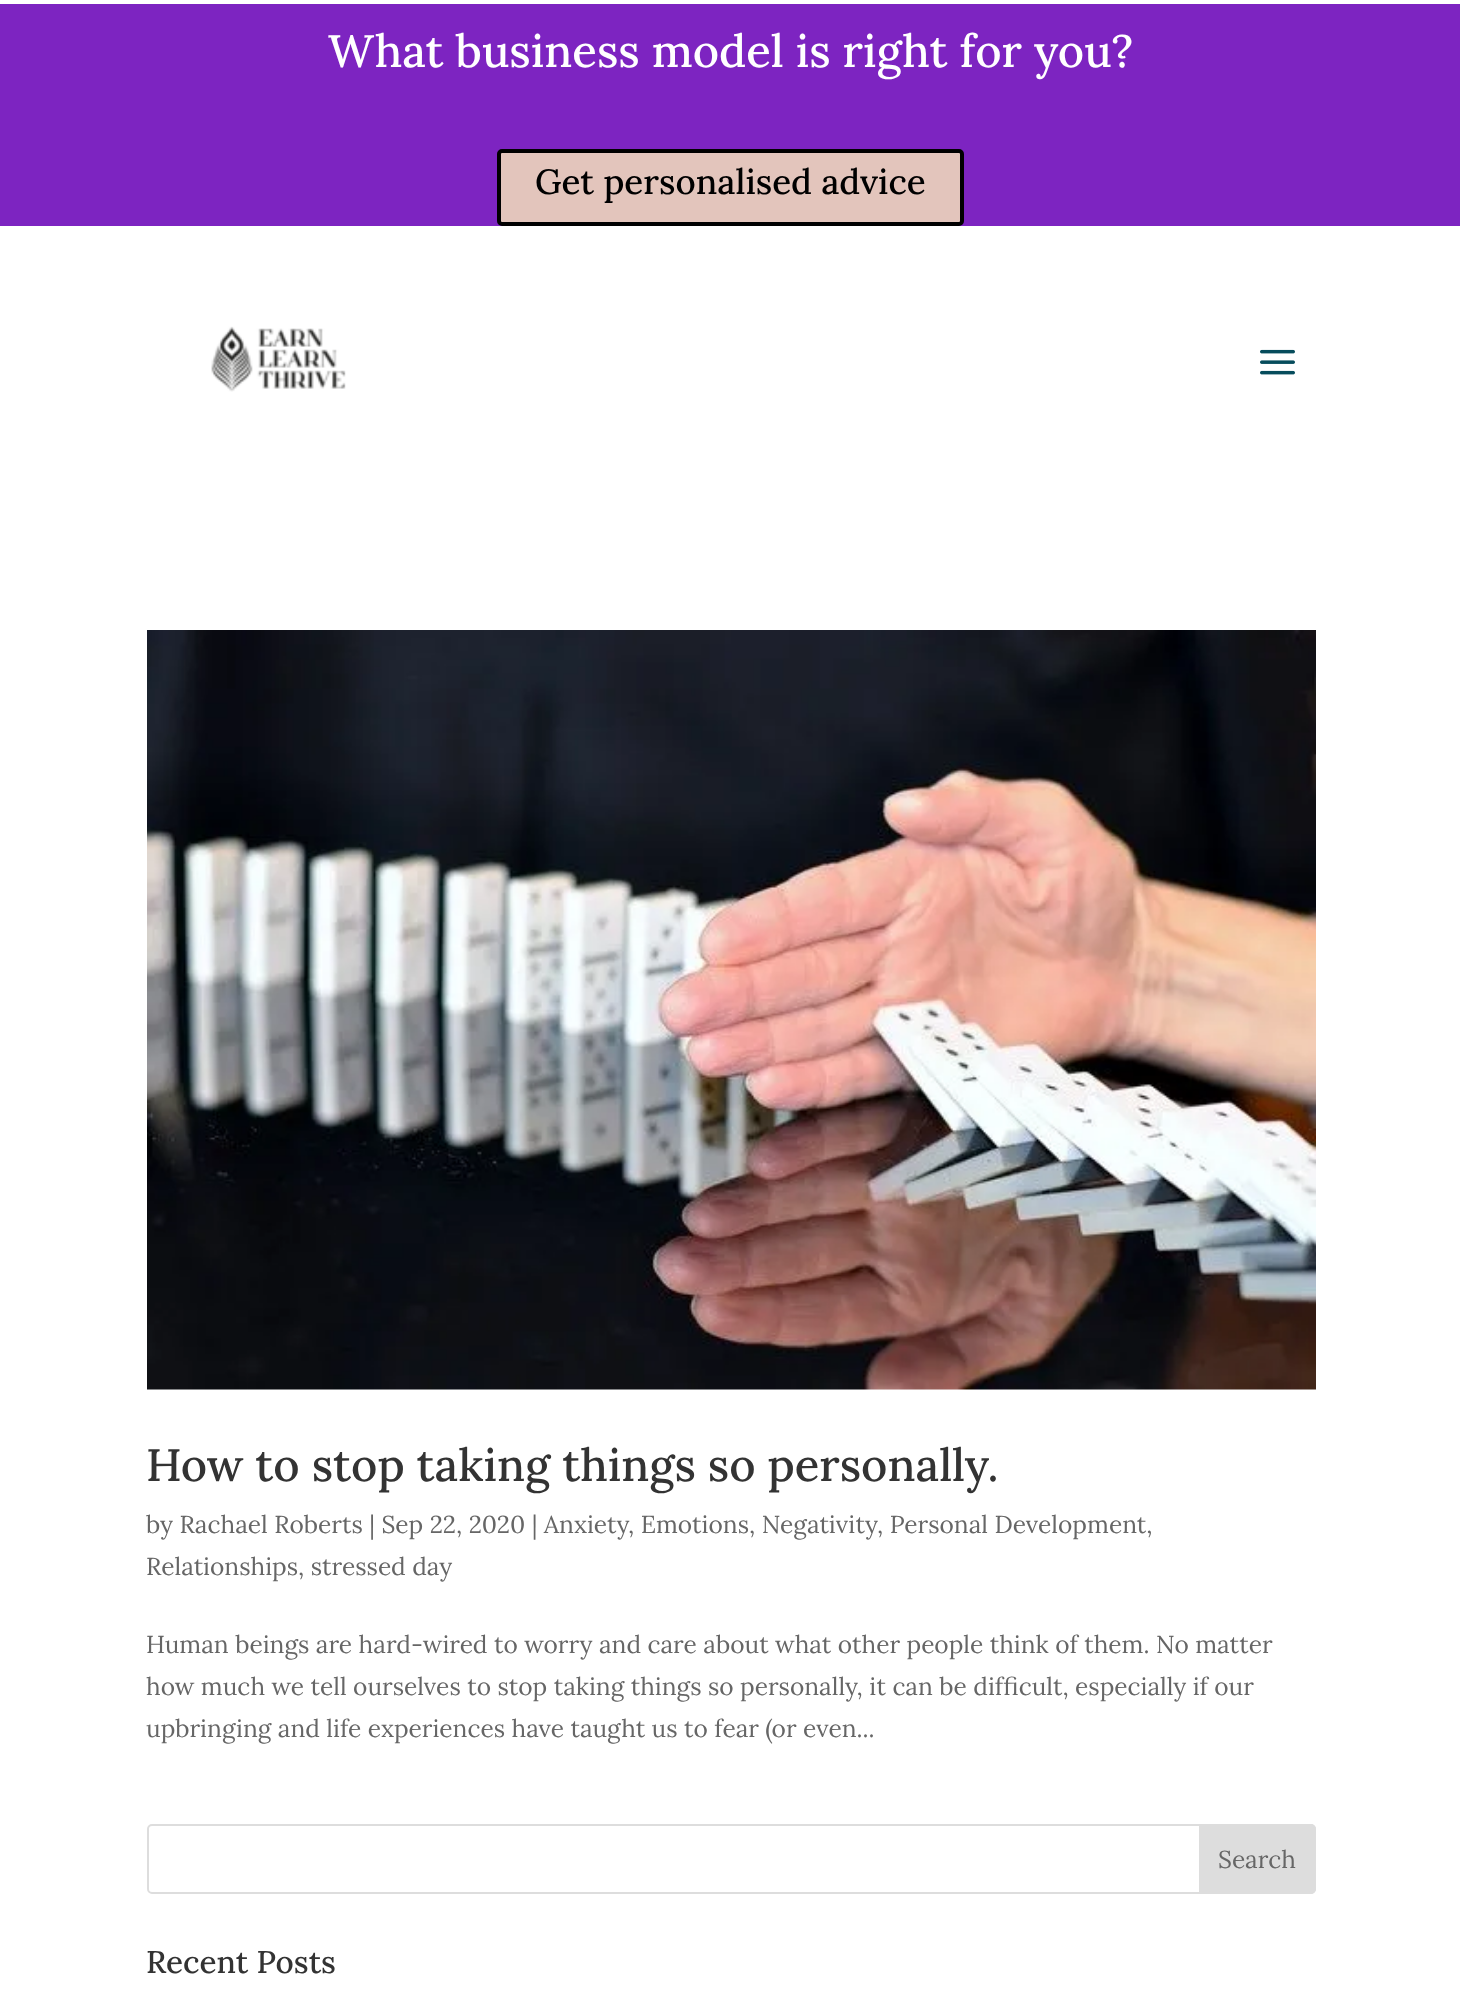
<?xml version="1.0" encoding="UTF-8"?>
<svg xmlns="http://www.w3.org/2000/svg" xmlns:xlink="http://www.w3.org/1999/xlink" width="1460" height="2009">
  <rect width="100%" height="100%" fill="#ffffff" />
  <rect y="4" width="1460" height="222" fill="#7d24c1" />
  <rect x="499" y="151" width="463" height="73" rx="3" fill="#e3c5bc" stroke="#000000" stroke-width="4" />
  <image x="211" y="326" width="135" height="66" xlink:href="image1.png" />
  <image x="1260" y="349" width="35" height="26" xlink:href="image2.png" />
  <image x="147" y="630" width="1169" height="760" xlink:href="image3.png" />
  <rect x="148" y="1825" width="1167" height="68" rx="4" fill="none" stroke="#dddddd" stroke-width="2" />
  <path d="M 1200 1825 h 111 c 2 0 4 2 4 4 v 60 c 0 2 -2 4 -4 4 h -111 z" fill="#dddddd" stroke="#dddddd" stroke-width="2" />
  <text x="328" y="67" style="font-family: Lora; font-size: 45.5px; font-weight: 500; fill: #ffffff">What business model is right for you?</text>
  <text x="535" y="194" style="font-family: Lora; font-size: 35px; font-weight: 500; fill: #000000">Get personalised advice</text>
  <text x="146" y="1481" style="font-family: Lora; font-size: 45.5px; font-weight: 500; fill: #333333">How to stop taking things so personally.</text>
  <text x="146" y="1533" style="font-family: Lora; font-size: 24.5px; fill: #666666">by Rachael Roberts | Sep 22, 2020 | Anxiety</text>
  <text x="628" y="1533" style="font-family: Lora; font-size: 24.5px; fill: #666666">, Emotions, Negativity</text>
  <text x="877" y="1533" style="font-family: Lora; font-size: 24.5px; fill: #666666">, Personal Development,</text>
  <text x="146" y="1575" style="font-family: Lora; font-size: 24.5px; fill: #666666">Relationships, stressed day</text>
  <text x="146" y="1653" style="font-family: Lora; font-size: 24.5px; fill: #666666">Human beings are hard-wired to worry and care about what other people think of them. No matter</text>
  <text x="146" y="1695" style="font-family: Lora; font-size: 24.5px; fill: #666666">how much we tell ourselves to stop taking things so personally, it can be difficult, especially if our</text>
  <text x="146" y="1737" style="font-family: Lora; font-size: 24.5px; fill: #666666">upbringing and life experiences have taught us to fear (or even...</text>
  <text x="1218" y="1868" style="font-family: Lora; font-size: 24.5px; fill: #666666">Search</text>
  <text x="146" y="1973" style="font-family: Lora; font-size: 31.5px; font-weight: 500; fill: #333333">Recent Posts</text>
</svg>
